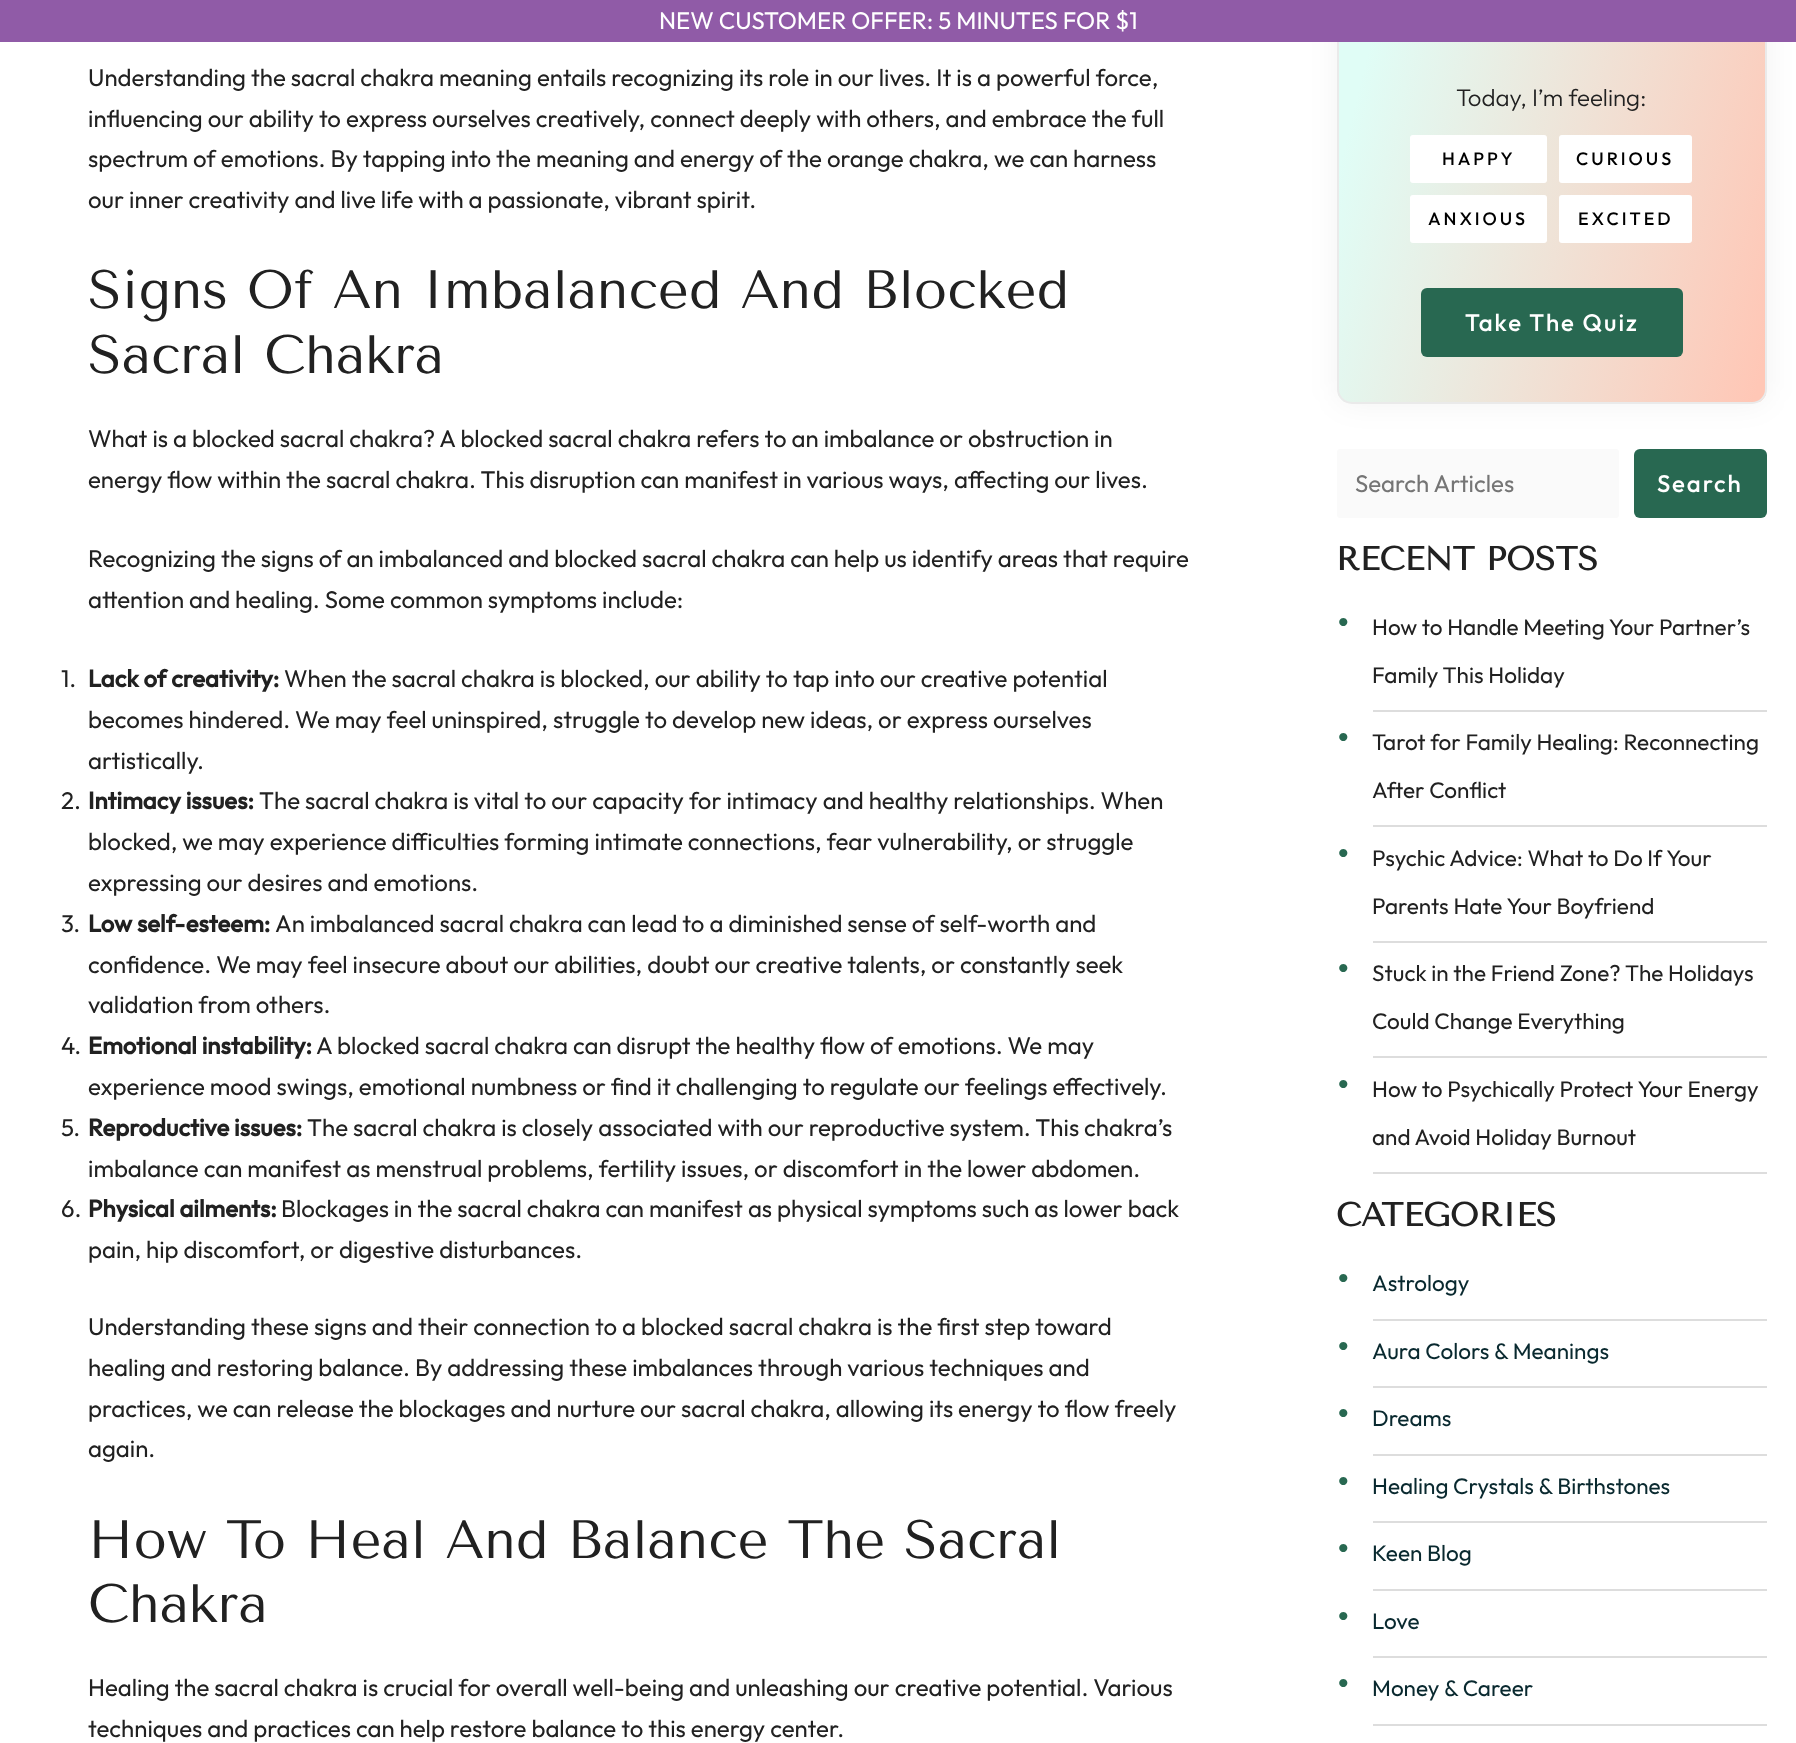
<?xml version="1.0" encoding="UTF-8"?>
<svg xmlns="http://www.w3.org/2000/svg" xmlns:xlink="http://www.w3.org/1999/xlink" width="1796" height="1743">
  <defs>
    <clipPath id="clip1"><rect x="1337" y="-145" width="430" height="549" rx="15" /></clipPath>
    <linearGradient id="g1" gradientUnits="userSpaceOnUse" x1="1286" y1="63" x2="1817" y2="195"><stop offset="0.14" stop-color="#e0fdf6" /><stop offset="0.98" stop-color="#ffc7b6" /></linearGradient>
  </defs>
  <rect width="100%" height="100%" fill="#ffffff" />
  <rect x="1337" y="-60" width="430" height="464" rx="15" fill="#000000" fill-opacity="0.05" filter="blur(15px)" />
  <g clip-path="url(#clip1)">
    <rect x="1338" y="42" width="428" height="360" fill="url(#g1)" />
  </g>
  <rect x="1338" y="-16" width="428" height="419" rx="14" fill="none" stroke="#eaeaea" stroke-width="2" />
  <rect width="1796" height="42" fill="#905ba7" />
  <rect x="1410" y="135" width="137" height="48" rx="3" fill="#ffffff" />
  <rect x="1559" y="135" width="133" height="48" rx="3" fill="#ffffff" />
  <rect x="1410" y="195" width="137" height="48" rx="3" fill="#ffffff" />
  <rect x="1559" y="195" width="133" height="48" rx="3" fill="#ffffff" />
  <rect x="1421" y="288" width="262" height="69" rx="6" fill="#286851" />
  <rect x="1337" y="449" width="282" height="69" rx="3" fill="#fafafa" />
  <rect x="1634" y="449" width="133" height="69" rx="6" fill="#286851" />
  <rect x="1373" y="710" width="394" height="2" fill="#dddddd" />
  <rect x="1373" y="825" width="394" height="2" fill="#dddddd" />
  <rect x="1373" y="941" width="394" height="2" fill="#dddddd" />
  <rect x="1373" y="1056" width="394" height="2" fill="#dddddd" />
  <rect x="1373" y="1172" width="394" height="2" fill="#dddddd" />
  <rect x="1373" y="1319" width="394" height="2" fill="#dddddd" />
  <rect x="1373" y="1386" width="394" height="2" fill="#dddddd" />
  <rect x="1373" y="1454" width="394" height="2" fill="#dddddd" />
  <rect x="1373" y="1521" width="394" height="2" fill="#dddddd" />
  <rect x="1373" y="1589" width="394" height="2" fill="#dddddd" />
  <rect x="1373" y="1656" width="394" height="2" fill="#dddddd" />
  <rect x="1373" y="1724" width="394" height="2" fill="#dddddd" />
  <text x="659" y="29" style="font-family: Outfit; font-size: 24px; fill: #ffffff">NEW CUSTOMER OFFER: 5 MINUTES FOR $1</text>
  <text x="88" y="86" style="font-family: Outfit; font-size: 24px; fill: #212121">Understanding the sacral chakra meaning entails recognizing its role in our lives. It is a powerful force,</text>
  <text x="88" y="127" style="font-family: Outfit; font-size: 24px; fill: #212121">influencing our ability to express ourselves creatively, connect deeply with others, and embrace the full</text>
  <text x="88" y="167" style="font-family: Outfit; font-size: 24px; fill: #212121">spectrum of emotions. By tapping into the meaning and energy of the orange chakra, we can harness</text>
  <text x="88" y="208" style="font-family: Outfit; font-size: 24px; fill: #212121">our inner creativity and live life with a passionate, vibrant spirit.</text>
  <text x="88" y="308" style="font-family: Tenor Sans; font-size: 54px; fill: #212121">Signs Of An Imbalanced And Blocked</text>
  <text x="88" y="373" style="font-family: Tenor Sans; font-size: 54px; fill: #212121">Sacral Chakra</text>
  <text x="88" y="447" style="font-family: Outfit; font-size: 24px; fill: #212121">What is a blocked sacral chakra? A blocked sacral chakra refers to an imbalance or obstruction in</text>
  <text x="88" y="488" style="font-family: Outfit; font-size: 24px; fill: #212121">energy flow within the sacral chakra. This disruption can manifest in various ways, affecting our lives.</text>
  <text x="88" y="567" style="font-family: Outfit; font-size: 24px; fill: #212121">Recognizing the signs of an imbalanced and blocked sacral chakra can help us identify areas that require</text>
  <text x="88" y="608" style="font-family: Outfit; font-size: 24px; fill: #212121">attention and healing. Some common symptoms include:</text>
  <text x="61" y="687" style="font-family: Outfit; font-size: 24px; fill: #212121">1.</text>
  <text x="88" y="687" style="font-family: Outfit; font-size: 24px; font-weight: bold; fill: #212121">Lack of creativity:</text>
  <text x="284" y="687" style="font-family: Outfit; font-size: 24px; fill: #212121">When the sacral chakra is blocked, our ability to tap into our creative potential</text>
  <text x="88" y="728" style="font-family: Outfit; font-size: 24px; fill: #212121">becomes hindered. We may feel uninspired, struggle to develop new ideas, or express ourselves</text>
  <text x="88" y="769" style="font-family: Outfit; font-size: 24px; fill: #212121">artistically.</text>
  <text x="61" y="809" style="font-family: Outfit; font-size: 24px; fill: #212121">2.</text>
  <text x="88" y="809" style="font-family: Outfit; font-size: 24px; font-weight: bold; fill: #212121">Intimacy issues:</text>
  <text x="259" y="809" style="font-family: Outfit; font-size: 24px; fill: #212121">The sacral chakra is vital to our capacity for intimacy and healthy relationships. When</text>
  <text x="88" y="850" style="font-family: Outfit; font-size: 24px; fill: #212121">blocked, we may experience difficulties forming intimate connections, fear vulnerability, or struggle</text>
  <text x="88" y="891" style="font-family: Outfit; font-size: 24px; fill: #212121">expressing our desires and emotions.</text>
  <text x="61" y="932" style="font-family: Outfit; font-size: 24px; fill: #212121">3.</text>
  <text x="88" y="932" style="font-family: Outfit; font-size: 24px; font-weight: bold; fill: #212121">Low self-esteem:</text>
  <text x="275" y="932" style="font-family: Outfit; font-size: 24px; fill: #212121">An imbalanced sacral chakra can lead to a diminished sense of self-worth and</text>
  <text x="88" y="973" style="font-family: Outfit; font-size: 24px; fill: #212121">confidence. We may feel insecure about our abilities, doubt our creative talents, or constantly seek</text>
  <text x="88" y="1013" style="font-family: Outfit; font-size: 24px; fill: #212121">validation from others.</text>
  <text x="61" y="1054" style="font-family: Outfit; font-size: 24px; fill: #212121">4.</text>
  <text x="88" y="1054" style="font-family: Outfit; font-size: 24px; font-weight: bold; fill: #212121">Emotional instability:</text>
  <text x="316" y="1054" style="font-family: Outfit; font-size: 24px; fill: #212121">A blocked sacral chakra can disrupt the healthy flow of emotions. We may</text>
  <text x="88" y="1095" style="font-family: Outfit; font-size: 24px; fill: #212121">experience mood swings, emotional numbness or find it challenging to regulate our feelings effectively.</text>
  <text x="61" y="1136" style="font-family: Outfit; font-size: 24px; fill: #212121">5.</text>
  <text x="88" y="1136" style="font-family: Outfit; font-size: 24px; font-weight: bold; fill: #212121">Reproductive issues:</text>
  <text x="307" y="1136" style="font-family: Outfit; font-size: 24px; fill: #212121">The sacral chakra is closely associated with our reproductive system. This chakra’s</text>
  <text x="88" y="1177" style="font-family: Outfit; font-size: 24px; fill: #212121">imbalance can manifest as menstrual problems, fertility issues, or discomfort in the lower abdomen.</text>
  <text x="61" y="1217" style="font-family: Outfit; font-size: 24px; fill: #212121">6.</text>
  <text x="88" y="1217" style="font-family: Outfit; font-size: 24px; font-weight: bold; fill: #212121">Physical ailments:</text>
  <text x="281" y="1217" style="font-family: Outfit; font-size: 24px; fill: #212121">Blockages in the sacral chakra can manifest as physical symptoms such as lower back</text>
  <text x="88" y="1258" style="font-family: Outfit; font-size: 24px; fill: #212121">pain, hip discomfort, or digestive disturbances.</text>
  <text x="88" y="1335" style="font-family: Outfit; font-size: 24px; fill: #212121">Understanding these signs and their connection to a blocked sacral chakra is the first step toward</text>
  <text x="88" y="1376" style="font-family: Outfit; font-size: 24px; fill: #212121">healing and restoring balance. By addressing these imbalances through various techniques and</text>
  <text x="88" y="1417" style="font-family: Outfit; font-size: 24px; fill: #212121">practices, we can release the blockages and nurture our sacral chakra, allowing its energy to flow freely</text>
  <text x="88" y="1457" style="font-family: Outfit; font-size: 24px; fill: #212121">again.</text>
  <text x="88" y="1558" style="font-family: Tenor Sans; font-size: 54px; fill: #212121">How To Heal And Balance The Sacral</text>
  <text x="88" y="1622" style="font-family: Tenor Sans; font-size: 54px; fill: #212121">Chakra</text>
  <text x="88" y="1696" style="font-family: Outfit; font-size: 24px; fill: #212121">Healing the sacral chakra is crucial for overall well-being and unleashing our creative potential. Various</text>
  <text x="88" y="1737" style="font-family: Outfit; font-size: 24px; fill: #212121">techniques and practices can help restore balance to this energy center.</text>
  <text x="1456" y="106" style="font-family: Outfit; font-size: 24px; font-weight: 300; fill: #212121">Today, I’m feeling:</text>
  <text x="1442" y="165" style="font-family: Outfit; font-size: 18px; font-weight: 500; letter-spacing: 3px; fill: #000000">HAPPY</text>
  <text x="1576" y="165" style="font-family: Outfit; font-size: 18px; font-weight: 500; letter-spacing: 3px; fill: #000000">CURIOUS</text>
  <text x="1428" y="225" style="font-family: Outfit; font-size: 18px; font-weight: 500; letter-spacing: 3px; fill: #000000">ANXIOUS</text>
  <text x="1578" y="225" style="font-family: Outfit; font-size: 18px; font-weight: 500; letter-spacing: 3px; fill: #000000">EXCITED</text>
  <text x="1465" y="331" style="font-family: Outfit; font-size: 24px; font-weight: 500; letter-spacing: 1.9px; fill: #ffffff">Take The Quiz</text>
  <text x="1355" y="492" style="font-family: Outfit; font-size: 24px; fill: #757575">Search Articles</text>
  <text x="1657" y="492" style="font-family: Outfit; font-size: 24px; font-weight: 500; letter-spacing: 1.9px; fill: #ffffff">Search</text>
  <text x="1336" y="570" style="font-family: Tenor Sans; font-size: 33px; font-weight: bold; fill: #212121">RECENT POSTS</text>
  <text x="1337" y="635" style="font-family: Outfit; font-size: 34px; font-weight: bold; fill: #286851">•</text>
  <text x="1372" y="635" style="font-family: Outfit; font-size: 22.5px; fill: #212121">How to Handle Meeting Your Partner’s</text>
  <text x="1372" y="683" style="font-family: Outfit; font-size: 22.5px; fill: #212121">Family This Holiday</text>
  <text x="1337" y="750" style="font-family: Outfit; font-size: 34px; font-weight: bold; fill: #286851">•</text>
  <text x="1372" y="750" style="font-family: Outfit; font-size: 22.5px; fill: #212121">Tarot for Family Healing: Reconnecting</text>
  <text x="1372" y="798" style="font-family: Outfit; font-size: 22.5px; fill: #212121">After Conflict</text>
  <text x="1337" y="866" style="font-family: Outfit; font-size: 34px; font-weight: bold; fill: #286851">•</text>
  <text x="1372" y="866" style="font-family: Outfit; font-size: 22.5px; fill: #212121">Psychic Advice: What to Do If Your</text>
  <text x="1372" y="914" style="font-family: Outfit; font-size: 22.5px; fill: #212121">Parents Hate Your Boyfriend</text>
  <text x="1337" y="981" style="font-family: Outfit; font-size: 34px; font-weight: bold; fill: #286851">•</text>
  <text x="1372" y="981" style="font-family: Outfit; font-size: 22.5px; fill: #212121">Stuck in the Friend Zone? The Holidays</text>
  <text x="1372" y="1029" style="font-family: Outfit; font-size: 22.5px; fill: #212121">Could Change Everything</text>
  <text x="1337" y="1097" style="font-family: Outfit; font-size: 34px; font-weight: bold; fill: #286851">•</text>
  <text x="1372" y="1097" style="font-family: Outfit; font-size: 22.5px; fill: #212121">How to Psychically Protect Your Energy</text>
  <text x="1372" y="1145" style="font-family: Outfit; font-size: 22.5px; fill: #212121">and Avoid Holiday Burnout</text>
  <text x="1336" y="1226" style="font-family: Tenor Sans; font-size: 33px; font-weight: bold; fill: #212121">CATEGORIES</text>
  <text x="1337" y="1291" style="font-family: Outfit; font-size: 34px; font-weight: bold; fill: #286851">•</text>
  <text x="1372" y="1291" style="font-family: Outfit; font-size: 22.5px; fill: #09292f">Astrology</text>
  <text x="1337" y="1359" style="font-family: Outfit; font-size: 34px; font-weight: bold; fill: #286851">•</text>
  <text x="1372" y="1359" style="font-family: Outfit; font-size: 22.5px; fill: #09292f">Aura Colors &amp; Meanings</text>
  <text x="1337" y="1426" style="font-family: Outfit; font-size: 34px; font-weight: bold; fill: #286851">•</text>
  <text x="1372" y="1426" style="font-family: Outfit; font-size: 22.5px; fill: #09292f">Dreams</text>
  <text x="1337" y="1494" style="font-family: Outfit; font-size: 34px; font-weight: bold; fill: #286851">•</text>
  <text x="1372" y="1494" style="font-family: Outfit; font-size: 22.5px; fill: #09292f">Healing Crystals &amp; Birthstones</text>
  <text x="1337" y="1561" style="font-family: Outfit; font-size: 34px; font-weight: bold; fill: #286851">•</text>
  <text x="1372" y="1561" style="font-family: Outfit; font-size: 22.5px; fill: #09292f">Keen Blog</text>
  <text x="1337" y="1629" style="font-family: Outfit; font-size: 34px; font-weight: bold; fill: #286851">•</text>
  <text x="1372" y="1629" style="font-family: Outfit; font-size: 22.5px; fill: #09292f">Love</text>
  <text x="1337" y="1696" style="font-family: Outfit; font-size: 34px; font-weight: bold; fill: #286851">•</text>
  <text x="1372" y="1696" style="font-family: Outfit; font-size: 22.5px; fill: #09292f">Money &amp; Career</text>
</svg>
